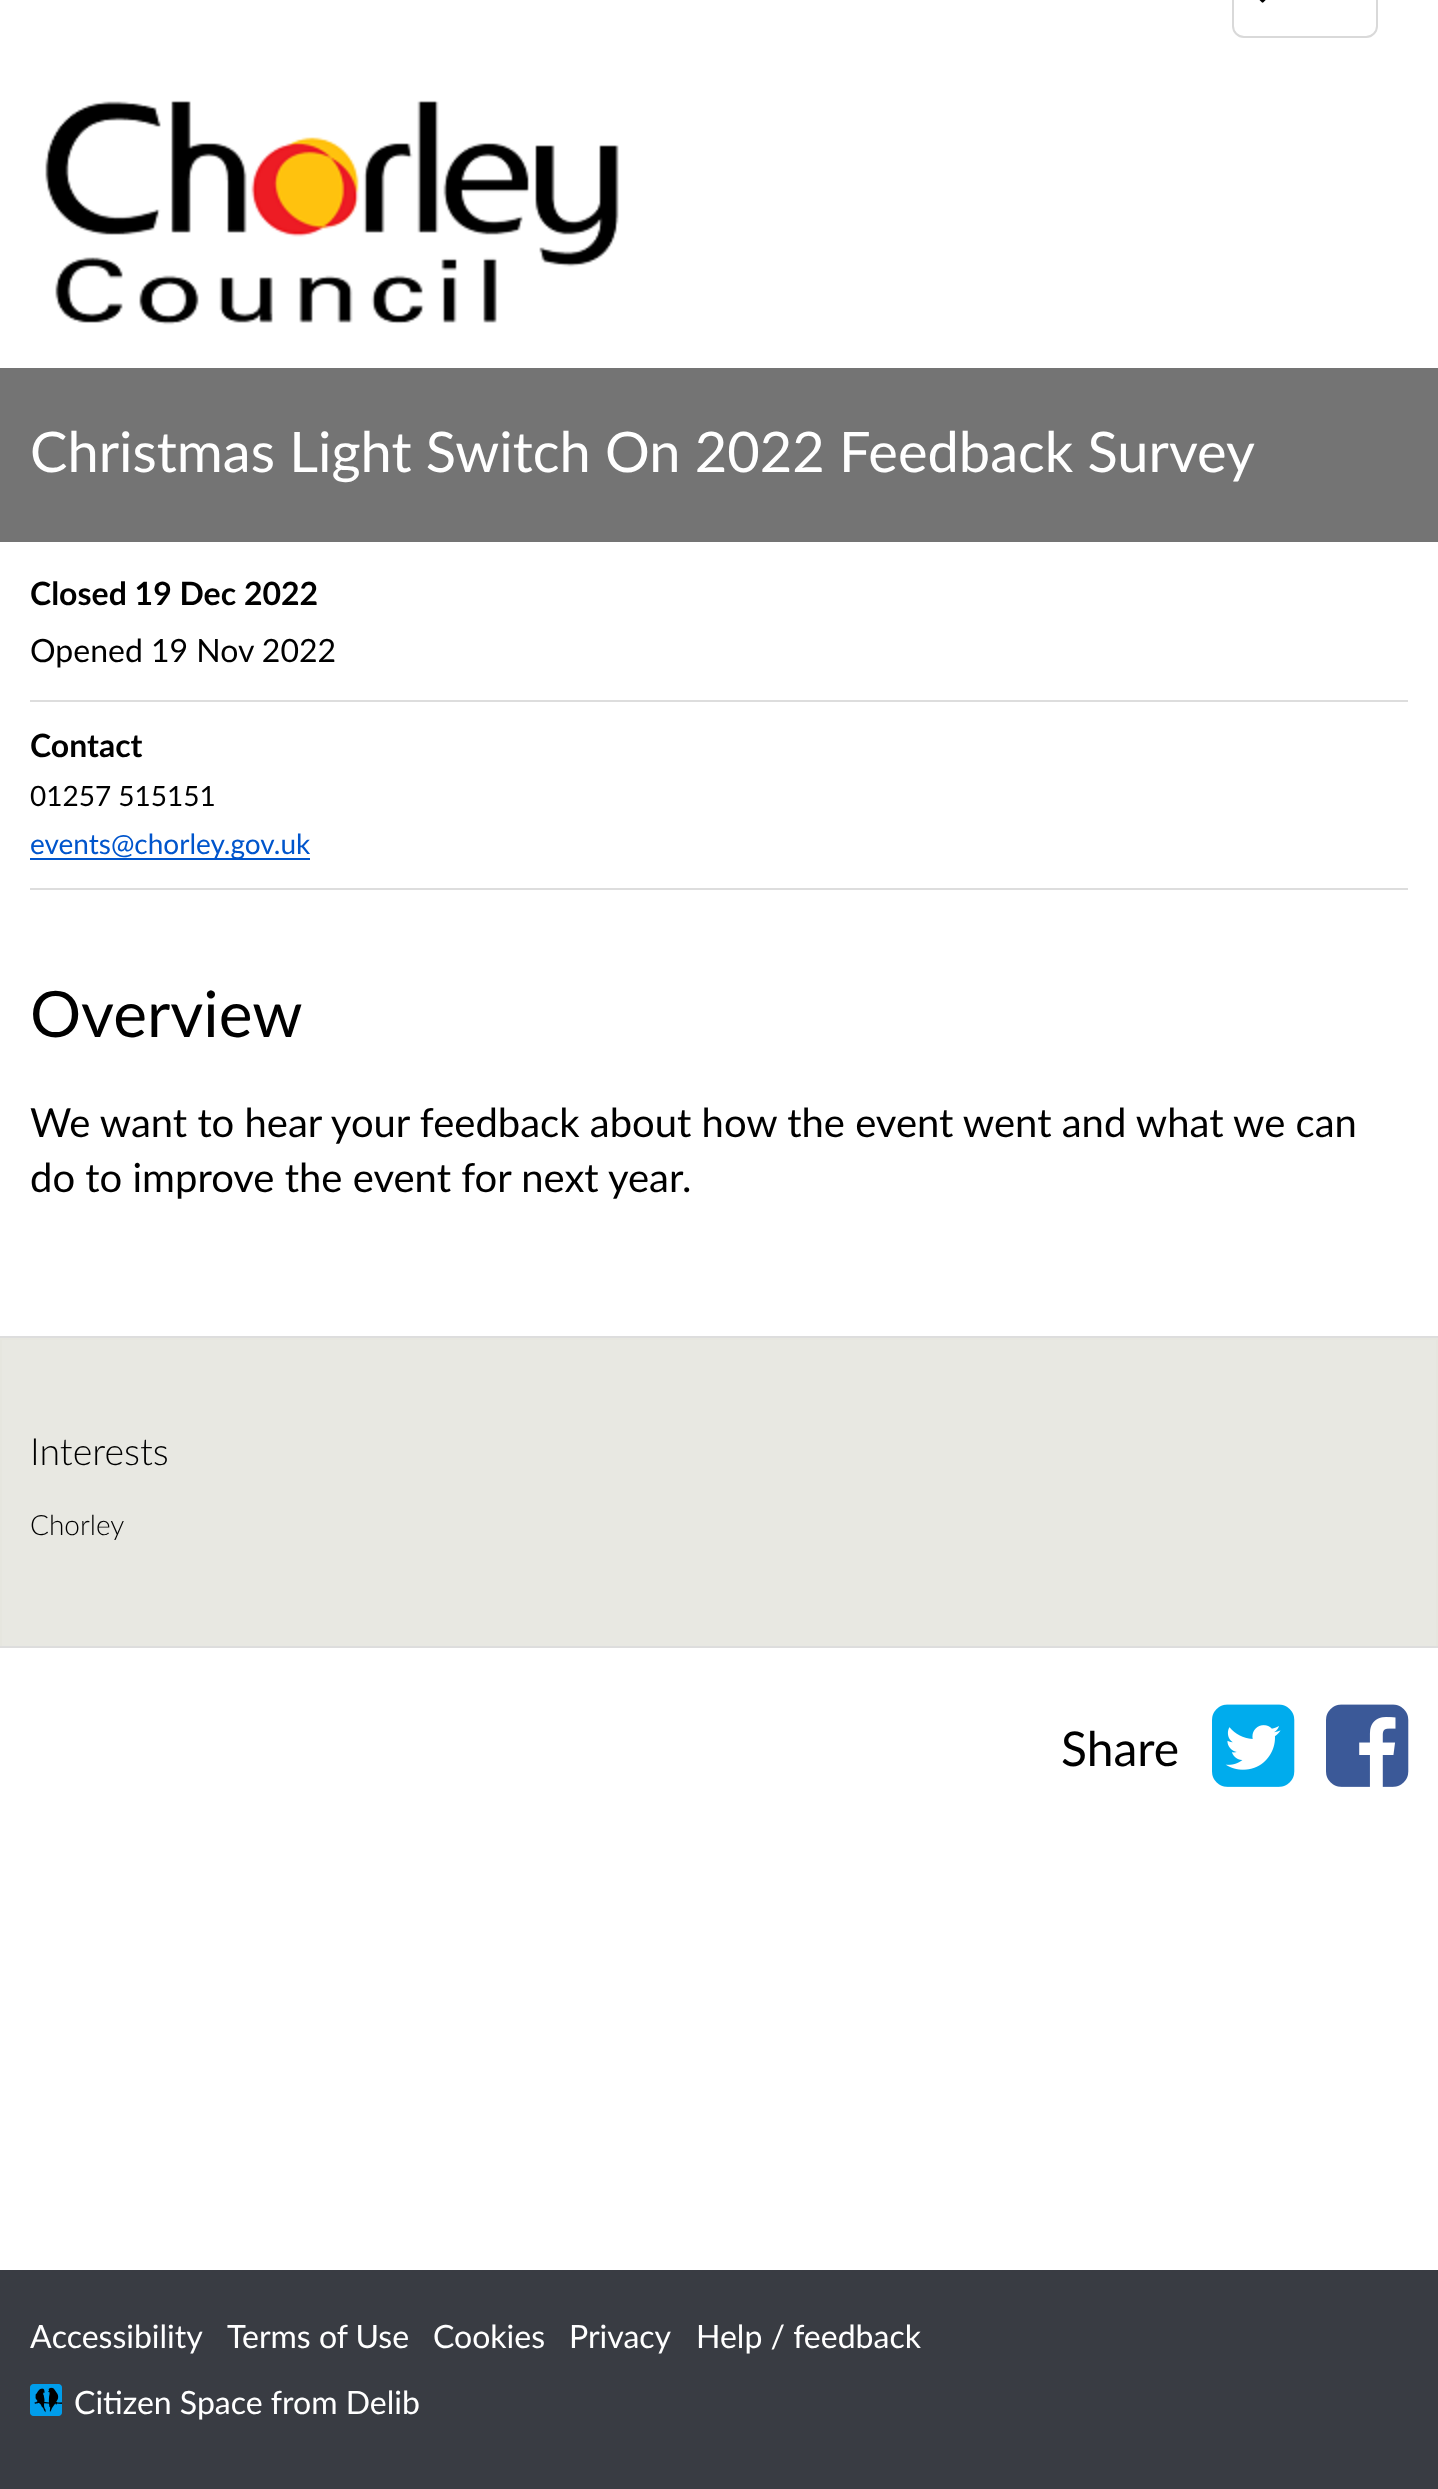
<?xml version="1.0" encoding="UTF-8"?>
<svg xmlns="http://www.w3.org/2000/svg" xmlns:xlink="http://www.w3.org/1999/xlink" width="1438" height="2489">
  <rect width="100%" height="100%" fill="#ffffff" />
  <rect x="1233" y="-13" width="144" height="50" rx="11" fill="none" stroke="#d9d9d9" stroke-width="2" />
  <image x="1259" y="0" width="7" height="3" xlink:href="image1.png" />
  <image x="45" y="100" width="574" height="225" xlink:href="image2.png" />
  <rect y="368" width="1438" height="174" fill="#747474" />
  <rect x="30" y="700" width="1378" height="2" fill="#dddddd" />
  <rect x="30" y="888" width="1378" height="2" fill="#dddddd" />
  <rect x="30" y="858" width="280" height="2" fill="#0055cc" />
  <rect y="1336" width="1438" height="2" fill="#dddddd" />
  <rect y="1646" width="1438" height="2" fill="#dddddd" />
  <rect y="1338" width="1438" height="308" fill="#e6e6df" />
  <rect x="2" y="1340" width="1434" height="306" fill="#e8e8e2" />
  <image x="1212" y="1704" width="83" height="83" xlink:href="image3.png" />
  <image x="1326" y="1704" width="83" height="83" xlink:href="image4.png" />
  <rect y="2270" width="1438" height="219" fill="#393c43" />
  <image x="30" y="2384" width="32" height="32" xlink:href="image5.png" />
  <text x="30" y="472" style="font-family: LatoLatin; font-size: 56px; fill: #ffffff">Christmas Light Switch On 2022 Feedback Survey</text>
  <text x="30" y="605" style="font-family: LatoLatin; font-size: 32px; font-weight: bold; fill: #000000">Closed 19 Dec 2022</text>
  <text x="30" y="662" style="font-family: LatoLatin; font-size: 32px; fill: #000000">Opened 19 Nov 2022</text>
  <text x="30" y="757" style="font-family: LatoLatin; font-size: 32px; font-weight: bold; fill: #000000">Contact</text>
  <text x="30" y="806" style="font-family: LatoLatin; font-size: 28px; fill: #000000">01257 515151</text>
  <text x="30" y="854" style="font-family: LatoLatin; font-size: 28px; fill: #0055cc">events@chorley.gov.uk</text>
  <text x="30" y="1037" style="font-family: LatoLatin; font-size: 64px; fill: #000000">Overview</text>
  <text x="30" y="1137" style="font-family: LatoLatin; font-size: 40px; fill: #000000">We want to hear your feedback about how the event went and what we can</text>
  <text x="30" y="1192" style="font-family: LatoLatin; font-size: 40px; fill: #000000">do to improve the event for next year.</text>
  <text x="30" y="1465" style="font-family: LatoLatin; font-size: 37.5px; font-weight: 300; fill: #000000">Interests</text>
  <text x="30" y="1535" style="font-family: LatoLatin; font-size: 28px; font-weight: 300; fill: #000000">Chorley</text>
  <text x="1061" y="1766" style="font-family: LatoLatin; font-size: 48px; fill: #000000">Share</text>
  <text x="30" y="2348" style="font-family: LatoLatin; font-size: 32px; fill: #ffffff">Accessibility</text>
  <text x="227" y="2348" style="font-family: LatoLatin; font-size: 32px; fill: #ffffff">Terms of Use</text>
  <text x="433" y="2348" style="font-family: LatoLatin; font-size: 32px; fill: #ffffff">Cookies</text>
  <text x="569" y="2348" style="font-family: LatoLatin; font-size: 32px; fill: #ffffff">Privacy</text>
  <text x="696" y="2348" style="font-family: LatoLatin; font-size: 32px; fill: #ffffff">Help / feedback</text>
  <text x="74" y="2414" style="font-family: LatoLatin; font-size: 32px; fill: #ffffff">Citizen Space from Delib</text>
</svg>
